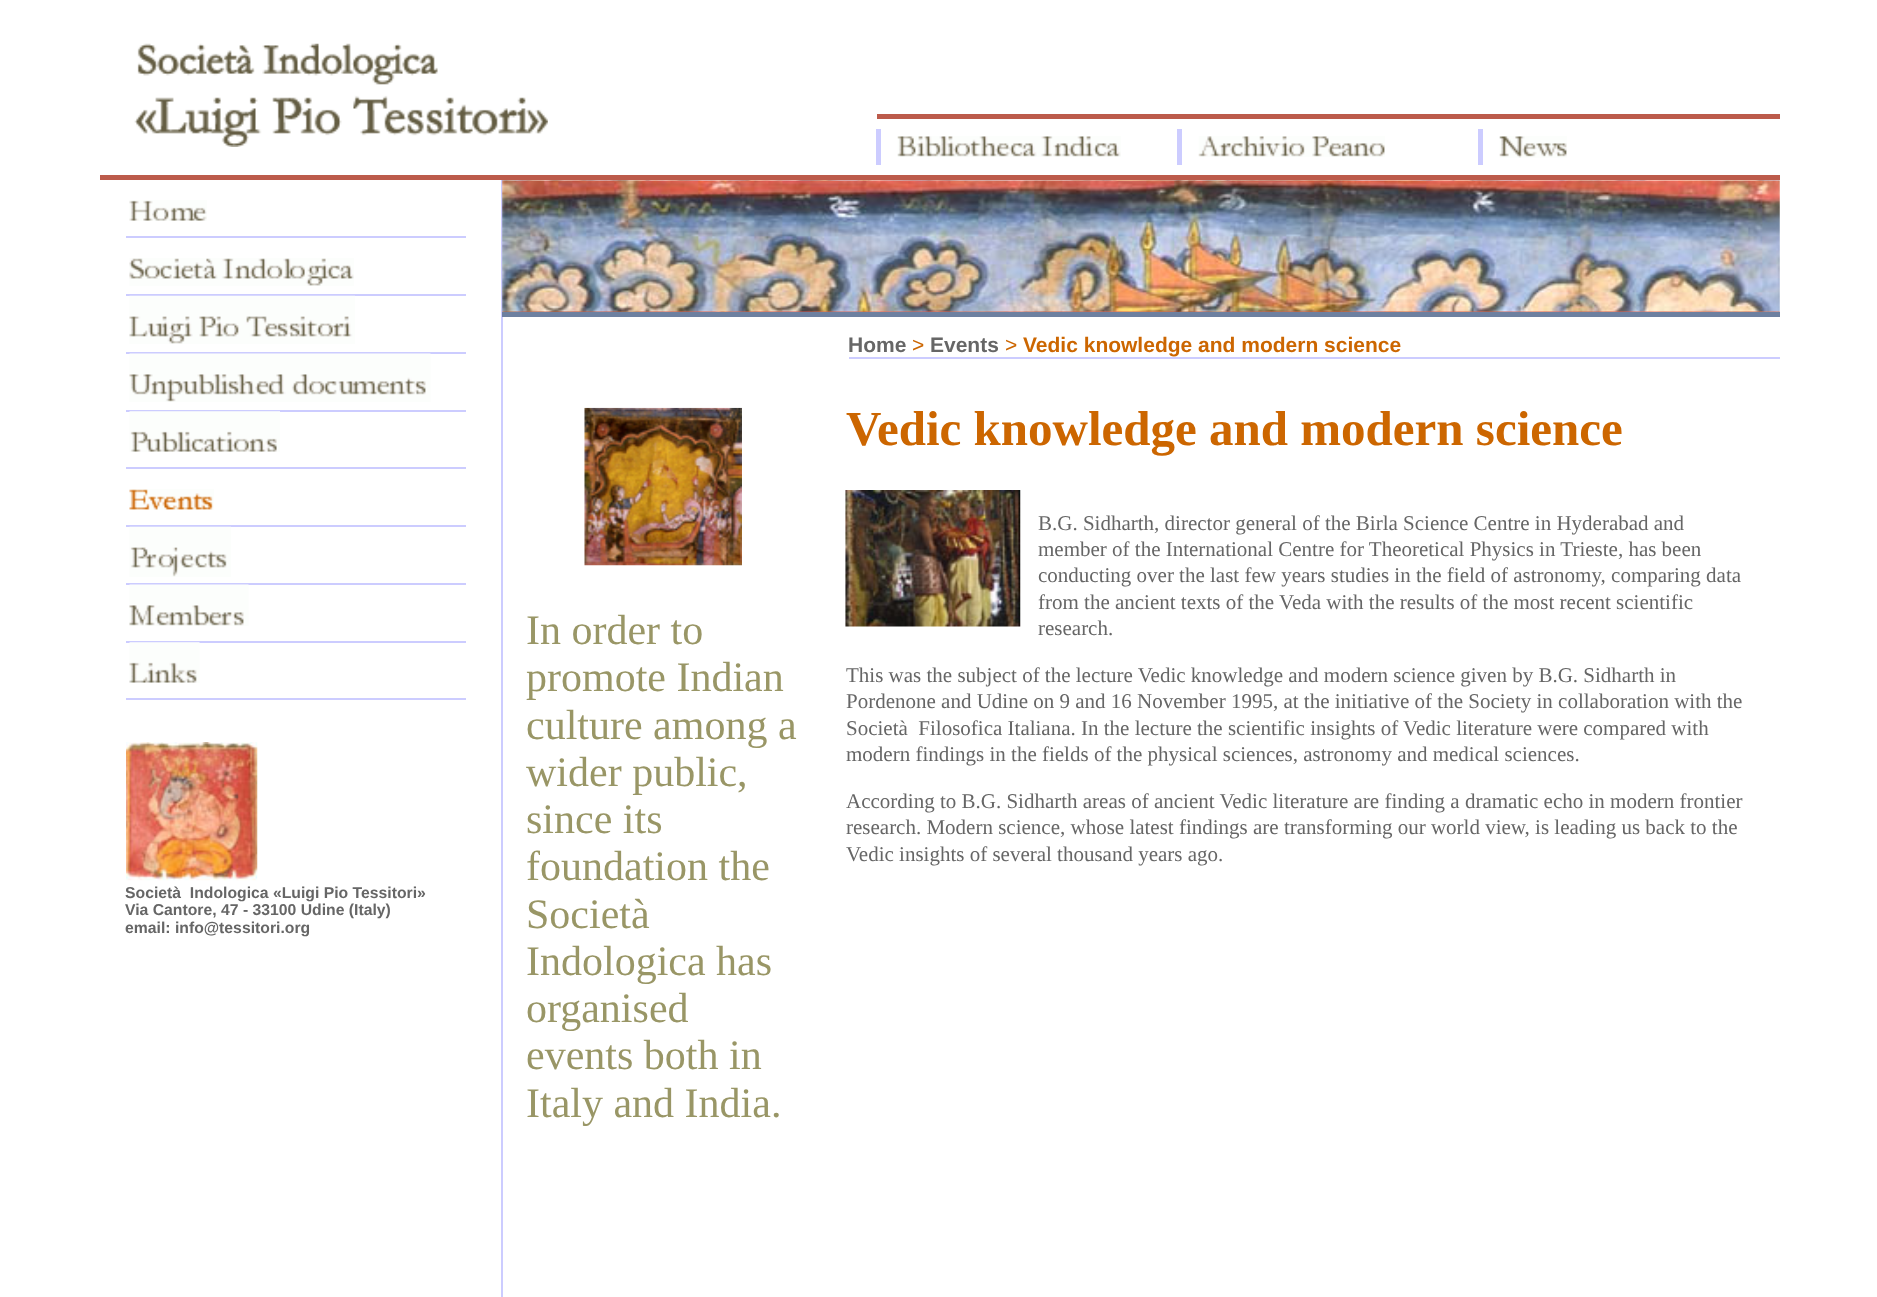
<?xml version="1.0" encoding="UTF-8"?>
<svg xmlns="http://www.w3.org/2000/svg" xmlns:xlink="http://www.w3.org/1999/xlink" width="1877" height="1297">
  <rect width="100%" height="100%" fill="#ffffff" />
  <rect x="100" y="175" width="1680" height="5" fill="#bc5b4b" />
  <image x="134" y="43" width="414" height="104" xlink:href="image1.png" />
  <rect x="877" y="114" width="903" height="5" fill="#bc5b4b" />
  <rect x="876" y="129" width="5" height="36" fill="#ccccff" />
  <image x="897" y="136" width="224" height="21" xlink:href="image2.png" />
  <rect x="1177" y="129" width="5" height="36" fill="#ccccff" />
  <image x="1198" y="136" width="187" height="21" xlink:href="image3.png" />
  <rect x="1478" y="129" width="5" height="36" fill="#ccccff" />
  <image x="1499" y="136" width="68" height="22" xlink:href="image4.png" />
  <rect x="126" y="236" width="340" height="2" fill="#ccccff" />
  <image x="129" y="200" width="78" height="21" xlink:href="image5.png" />
  <rect x="126" y="294" width="340" height="2" fill="#ccccff" />
  <image x="129" y="258" width="225" height="28" xlink:href="image6.png" />
  <rect x="126" y="352" width="340" height="2" fill="#ccccff" />
  <image x="129" y="295" width="226" height="49" xlink:href="image7.png" />
  <rect x="126" y="410" width="340" height="2" fill="#ccccff" />
  <image x="129" y="353" width="302" height="49" xlink:href="image8.png" />
  <rect x="126" y="467" width="340" height="2" fill="#ccccff" />
  <image x="129" y="411" width="151" height="41" xlink:href="image9.png" />
  <rect x="126" y="525" width="340" height="2" fill="#ccccff" />
  <image x="129" y="489" width="85" height="21" xlink:href="image10.png" />
  <rect x="126" y="583" width="340" height="2" fill="#ccccff" />
  <image x="129" y="526" width="102" height="51" xlink:href="image11.png" />
  <rect x="126" y="641" width="340" height="2" fill="#ccccff" />
  <image x="129" y="584" width="120" height="42" xlink:href="image12.png" />
  <rect x="126" y="698" width="340" height="2" fill="#ccccff" />
  <image x="129" y="642" width="71" height="41" xlink:href="image13.png" />
  <image x="126" y="742" width="132" height="139" xlink:href="image14.png" />
  <rect x="501" y="180" width="2" height="1117" fill="#ccccff" />
  <image x="502" y="180" width="1278" height="132" xlink:href="image15.png" />
  <rect x="502" y="312" width="1278" height="5" fill="#6d80a0" />
  <rect x="849" y="357" width="931" height="2" fill="#ccccff" />
  <image x="584" y="407" width="158" height="159" xlink:href="image16.png" />
  <image x="845" y="490" width="176" height="137" xlink:href="image17.png" />
  <text x="125" y="898" style="font-family: Liberation Sans; font-size: 15.75px; font-weight: bold; fill: #666666" xml:space="preserve">Società  Indologica «Luigi Pio Tessitori»</text>
  <text x="125" y="915" style="font-family: Liberation Sans; font-size: 15.75px; font-weight: bold; fill: #666666">Via Cantore, 47 - 33100 Udine (Italy)</text>
  <text x="125" y="933" style="font-family: Liberation Sans; font-size: 15.75px; font-weight: bold; fill: #666666">email: info@tessitori.org</text>
  <text x="848" y="352" style="font-family: Liberation Sans; font-size: 21px; font-weight: bold; fill: #666666">Home</text>
  <text x="912" y="352" style="font-family: Liberation Sans; font-size: 21px; fill: #cc6600">&gt;</text>
  <text x="930" y="352" style="font-family: Liberation Sans; font-size: 21px; font-weight: bold; fill: #666666">Events</text>
  <text x="1005" y="352" style="font-family: Liberation Sans; font-size: 21px; fill: #cc6600">&gt;</text>
  <text x="1023" y="352" style="font-family: Liberation Sans; font-size: 21px; font-weight: bold; fill: #cc6600">Vedic knowledge and modern science</text>
  <text x="526" y="644" style="font-family: Liberation Serif; font-size: 42px; fill: #999666">In order to</text>
  <text x="526" y="691" style="font-family: Liberation Serif; font-size: 42px; fill: #999666">promote Indian</text>
  <text x="526" y="739" style="font-family: Liberation Serif; font-size: 42px; fill: #999666">culture among a</text>
  <text x="526" y="786" style="font-family: Liberation Serif; font-size: 42px; fill: #999666">wider public,</text>
  <text x="526" y="833" style="font-family: Liberation Serif; font-size: 42px; fill: #999666">since its</text>
  <text x="526" y="880" style="font-family: Liberation Serif; font-size: 42px; fill: #999666">foundation the</text>
  <text x="526" y="928" style="font-family: Liberation Serif; font-size: 42px; fill: #999666">Società</text>
  <text x="526" y="975" style="font-family: Liberation Serif; font-size: 42px; fill: #999666">Indologica has</text>
  <text x="526" y="1022" style="font-family: Liberation Serif; font-size: 42px; fill: #999666">organised</text>
  <text x="526" y="1069" style="font-family: Liberation Serif; font-size: 42px; fill: #999666">events both in</text>
  <text x="526" y="1117" style="font-family: Liberation Serif; font-size: 42px; fill: #999666">Italy and India.</text>
  <text x="846" y="445" style="font-family: Liberation Serif; font-size: 49px; font-weight: bold; fill: #cc6600">Vedic knowledge and modern science</text>
  <text x="1038" y="530" style="font-family: Liberation Serif; font-size: 21px; fill: #666666">B.G. Sidharth, director general of the Birla Science Centre in Hyderabad and</text>
  <text x="1038" y="556" style="font-family: Liberation Serif; font-size: 21px; fill: #666666">member of the International Centre for Theoretical Physics in Trieste, has been</text>
  <text x="1038" y="582" style="font-family: Liberation Serif; font-size: 21px; fill: #666666">conducting over the last few years studies in the field of astronomy, comparing data</text>
  <text x="1038" y="609" style="font-family: Liberation Serif; font-size: 21px; fill: #666666">from the ancient texts of the Veda with the results of the most recent scientific</text>
  <text x="1038" y="635" style="font-family: Liberation Serif; font-size: 21px; fill: #666666">research.</text>
  <text x="846" y="682" style="font-family: Liberation Serif; font-size: 21px; fill: #666666">This was the subject of the lecture Vedic knowledge and modern science given by B.G. Sidharth in</text>
  <text x="846" y="708" style="font-family: Liberation Serif; font-size: 21px; fill: #666666">Pordenone and Udine on 9 and 16 November 1995, at the initiative of the Society in collaboration with the</text>
  <text x="846" y="735" style="font-family: Liberation Serif; font-size: 21px; fill: #666666" xml:space="preserve">Società  Filosofica Italiana. In the lecture the scientific insights of Vedic literature were compared with</text>
  <text x="846" y="761" style="font-family: Liberation Serif; font-size: 21px; fill: #666666">modern findings in the fields of the physical sciences, astronomy and medical sciences.</text>
  <text x="846" y="808" style="font-family: Liberation Serif; font-size: 21px; fill: #666666">According to B.G. Sidharth areas of ancient Vedic literature are finding a dramatic echo in modern frontier</text>
  <text x="846" y="834" style="font-family: Liberation Serif; font-size: 21px; fill: #666666">research. Modern science, whose latest findings are transforming our world view, is leading us back to the</text>
  <text x="846" y="861" style="font-family: Liberation Serif; font-size: 21px; fill: #666666">Vedic insights of several thousand years ago.</text>
</svg>
